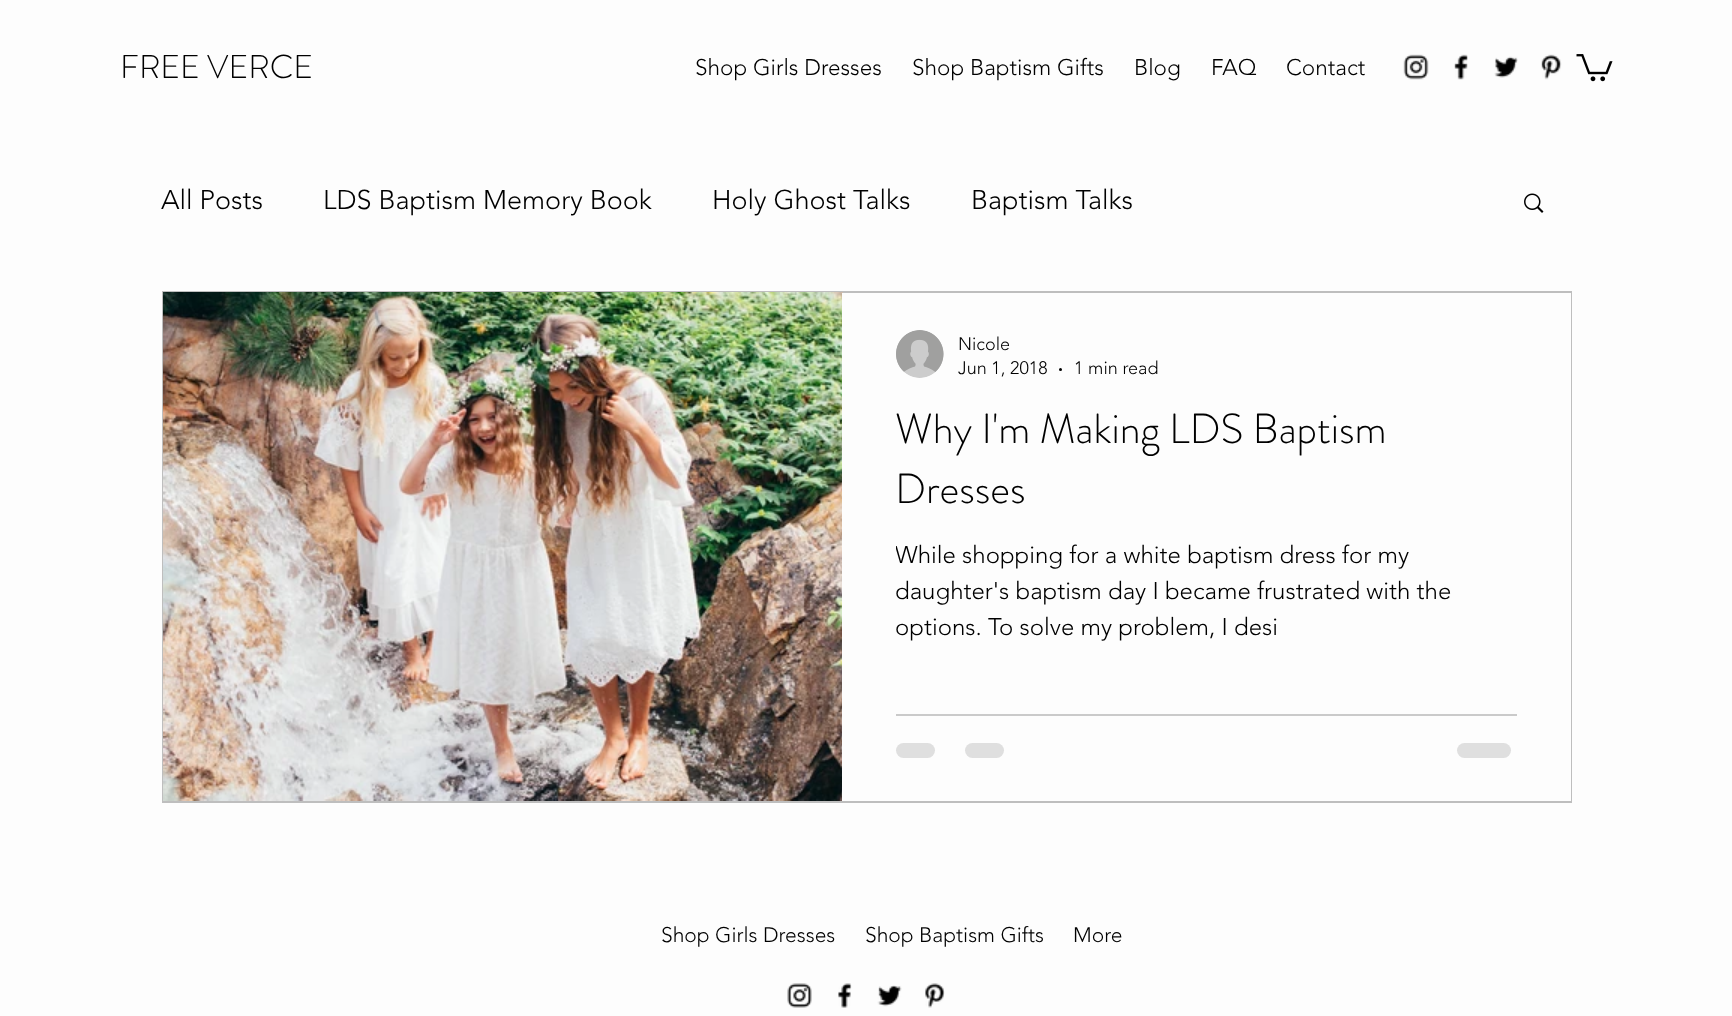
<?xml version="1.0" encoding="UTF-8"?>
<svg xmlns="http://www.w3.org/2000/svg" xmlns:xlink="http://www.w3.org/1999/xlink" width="1732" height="1016">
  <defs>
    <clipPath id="clip1"><rect x="896" y="537" width="621" height="108" /></clipPath>
  </defs>
  <rect width="100%" height="100%" fill="#fdfdfd" />
  <image x="1403" y="54" width="26" height="26" xlink:href="image1.png" />
  <image x="1454" y="54" width="14" height="26" xlink:href="image2.png" />
  <image x="1494" y="56" width="24" height="22" xlink:href="image3.png" />
  <image x="1541" y="54" width="21" height="26" xlink:href="image4.png" />
  <image x="1576" y="54" width="37" height="28" xlink:href="image5.png" />
  <image x="1524" y="193" width="20" height="20" xlink:href="image6.png" />
  <rect x="163" y="292" width="1408" height="510" fill="none" stroke="#bebebe" stroke-width="2" />
  <image x="163" y="292" width="680" height="509" xlink:href="image7.png" />
  <rect x="842" y="293" width="729" height="508" fill="#fdfdfd" />
  <image x="896" y="330" width="48" height="48" xlink:href="image8.png" />
  <circle cx="1060.5" cy="369.5" r="1.5" fill="#000000" />
  <rect x="896" y="714" width="621" height="2" fill="#cacaca" />
  <rect x="896" y="743" width="39" height="15" rx="7.5" fill="#dfdfdf" />
  <rect x="965" y="743" width="39" height="15" rx="7.5" fill="#dfdfdf" />
  <rect x="1457" y="743" width="54" height="15" rx="7.5" fill="#dfdfdf" />
  <image x="787" y="983" width="25" height="25" xlink:href="image9.png" />
  <image x="838" y="983" width="14" height="25" xlink:href="image10.png" />
  <image x="877" y="985" width="25" height="22" xlink:href="image11.png" />
  <image x="925" y="983" width="20" height="25" xlink:href="image12.png" />
  <text x="120" y="78" style="font-family: 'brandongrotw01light'; font-size: 33px; font-weight: 300; fill: #000000">FREE VERCE</text>
  <text x="695" y="75" style="font-family: 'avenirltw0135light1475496'; font-size: 22.5px; font-weight: 300; fill: #000000">Shop Girls Dresses</text>
  <text x="912" y="75" style="font-family: 'avenirltw0135light1475496'; font-size: 22.5px; font-weight: 300; fill: #000000">Shop Baptism Gifts</text>
  <text x="1134" y="75" style="font-family: 'avenirltw0135light1475496'; font-size: 22.5px; font-weight: 300; fill: #000000">Blog</text>
  <text x="1211" y="75" style="font-family: 'avenirltw0135light1475496'; font-size: 22.5px; font-weight: 300; fill: #000000">FAQ</text>
  <text x="1286" y="75" style="font-family: 'avenirltw0135light1475496'; font-size: 22.5px; font-weight: 300; fill: #000000">Contact</text>
  <text x="161" y="209" style="font-family: 'avenirltw0135light1475496'; font-size: 27px; font-weight: 300; fill: #000000">All Posts</text>
  <text x="323" y="209" style="font-family: 'avenirltw0135light1475496'; font-size: 27px; font-weight: 300; fill: #000000">LDS Baptism Memory Book</text>
  <text x="712" y="209" style="font-family: 'avenirltw0135light1475496'; font-size: 27px; font-weight: 300; fill: #000000">Holy Ghost Talks</text>
  <text x="971" y="209" style="font-family: 'avenirltw0135light1475496'; font-size: 27px; font-weight: 300; fill: #000000">Baptism Talks</text>
  <text x="958" y="350" style="font-family: 'avenirltw0135light1475496'; font-size: 18px; font-weight: 300; fill: #000000">Nicole</text>
  <text x="958" y="374" style="font-family: 'avenirltw0135light1475496'; font-size: 18px; font-weight: 300; fill: #000000">Jun 1, 2018</text>
  <text x="1074" y="374" style="font-family: 'avenirltw0135light1475496'; font-size: 18px; font-weight: 300; fill: #000000">1 min read</text>
  <text x="895" y="443" style="font-family: 'brandongrotw01light'; font-size: 42px; font-weight: 300; fill: #000000">Why I'm Making LDS Baptism</text>
  <text x="895" y="503" style="font-family: 'brandongrotw01light'; font-size: 42px; font-weight: 300; fill: #000000">Dresses</text>
  <g clip-path="url(#clip1)">
    <text x="895" y="563" style="font-family: 'avenirltw0135light1475496'; font-size: 24px; font-weight: 300; fill: #000000">While shopping for a white baptism dress for my</text>
  </g>
  <text x="895" y="599" style="font-family: 'avenirltw0135light1475496'; font-size: 24px; font-weight: 300; fill: #000000">daughter's baptism day I became frustrated with the</text>
  <text x="895" y="635" style="font-family: 'avenirltw0135light1475496'; font-size: 24px; font-weight: 300; fill: #000000">options. To solve my problem, I desi</text>
  <text x="661" y="942" style="font-family: 'avenirltw0135light1475496'; font-size: 21px; font-weight: 300; fill: #000000">Shop Girls Dresses</text>
  <text x="865" y="942" style="font-family: 'avenirltw0135light1475496'; font-size: 21px; font-weight: 300; fill: #000000">Shop Baptism Gifts</text>
  <text x="1073" y="942" style="font-family: 'avenirltw0135light1475496'; font-size: 21px; font-weight: 300; fill: #000000">More</text>
</svg>
